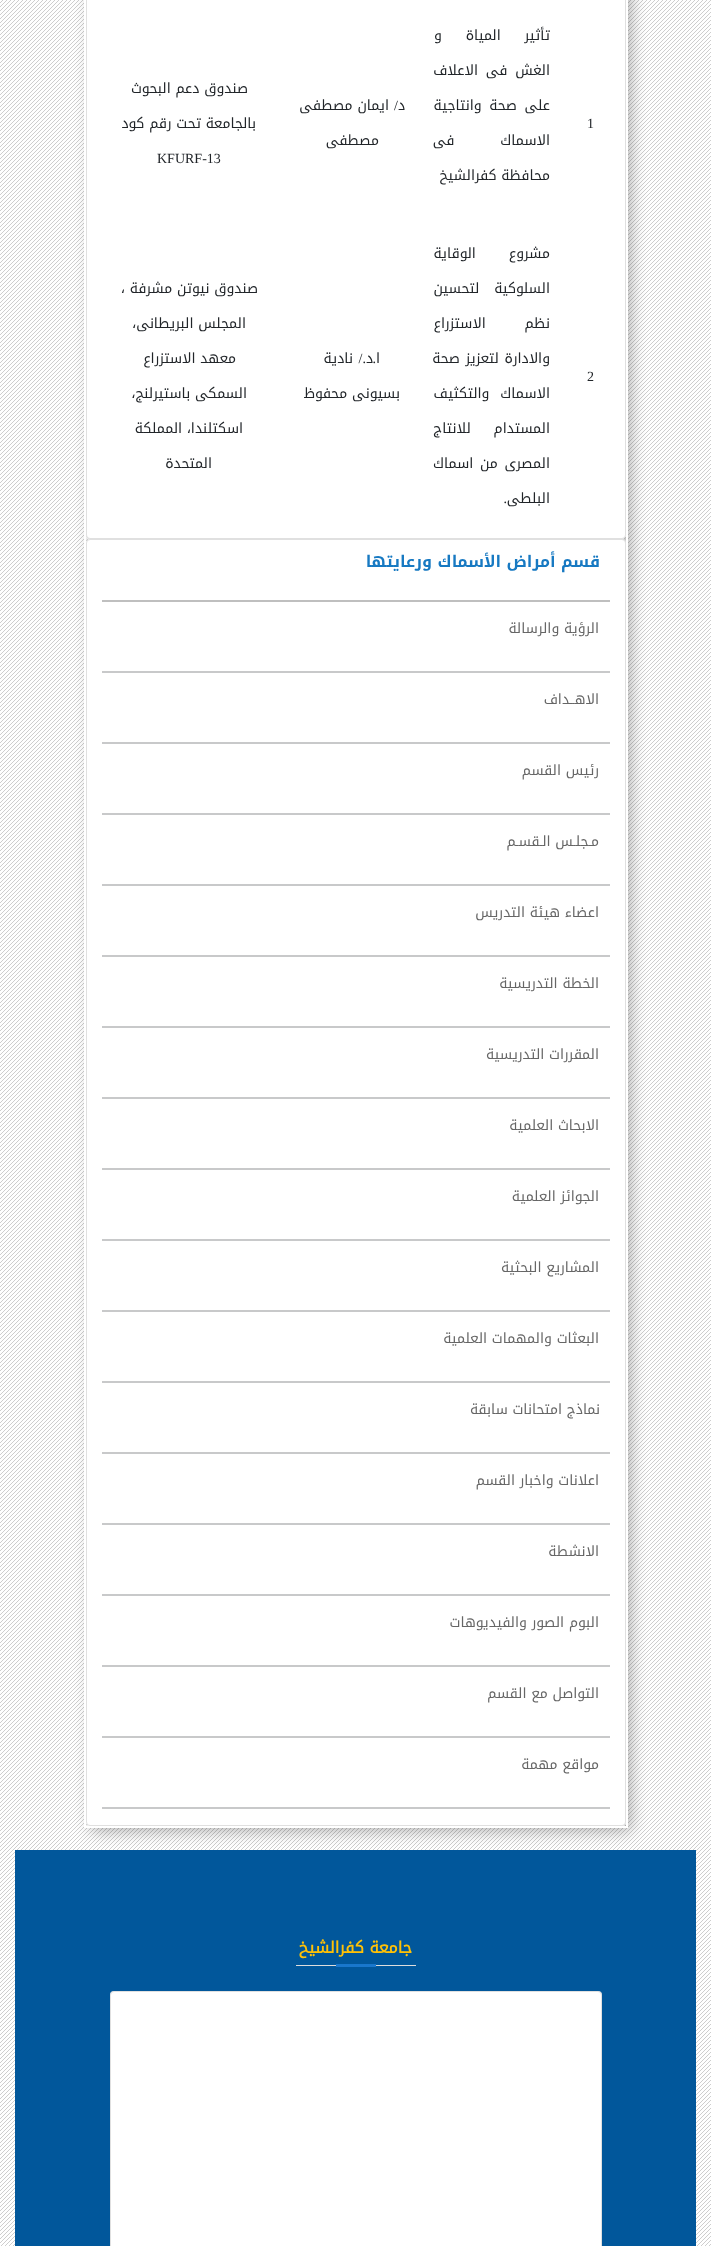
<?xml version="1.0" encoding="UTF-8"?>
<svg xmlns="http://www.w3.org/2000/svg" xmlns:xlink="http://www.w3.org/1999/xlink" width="711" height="2246">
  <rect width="100%" height="100%" fill="#ffffff" />
  <image x="0" y="0" width="711" height="2246" xlink:href="image1.png" />
  <rect x="91" y="-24" width="540" height="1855" fill="#000000" fill-opacity="0.3" filter="blur(8px)" />
  <rect x="85" y="-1" width="542" height="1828" fill="none" stroke="#ffffff" stroke-width="2" />
  <rect x="86" y="-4" width="540" height="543" rx="4" fill="#ffffff" />
  <rect x="86.5" y="-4.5" width="539" height="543" rx="3.5" fill="none" stroke="#000000" stroke-opacity="0.12" />
  <rect x="86" y="539" width="540" height="1287" rx="4" fill="#ffffff" />
  <rect x="86.5" y="539.5" width="539" height="1286" rx="3.5" fill="none" stroke="#000000" stroke-opacity="0.12" />
  <rect x="102" y="600" width="508" height="2" fill="#bfbfbf" />
  <rect x="102" y="671" width="508" height="2" fill="#c8c9ca" />
  <rect x="102" y="742" width="508" height="2" fill="#c8c9ca" />
  <rect x="102" y="813" width="508" height="2" fill="#c8c9ca" />
  <rect x="102" y="884" width="508" height="2" fill="#c8c9ca" />
  <rect x="102" y="955" width="508" height="2" fill="#c8c9ca" />
  <rect x="102" y="1026" width="508" height="2" fill="#c8c9ca" />
  <rect x="102" y="1097" width="508" height="2" fill="#c8c9ca" />
  <rect x="102" y="1168" width="508" height="2" fill="#c8c9ca" />
  <rect x="102" y="1239" width="508" height="2" fill="#c8c9ca" />
  <rect x="102" y="1310" width="508" height="2" fill="#c8c9ca" />
  <rect x="102" y="1381" width="508" height="2" fill="#c8c9ca" />
  <rect x="102" y="1452" width="508" height="2" fill="#c8c9ca" />
  <rect x="102" y="1523" width="508" height="2" fill="#c8c9ca" />
  <rect x="102" y="1594" width="508" height="2" fill="#c8c9ca" />
  <rect x="102" y="1665" width="508" height="2" fill="#c8c9ca" />
  <rect x="102" y="1736" width="508" height="2" fill="#c8c9ca" />
  <rect x="102" y="1807" width="508" height="2" fill="#c8c9ca" />
  <rect x="15" y="1850" width="681" height="396" fill="#01579b" />
  <rect x="296" y="1965" width="120" height="1" fill="#dddddd" />
  <rect x="336" y="1964" width="40" height="3" fill="#1977cc" />
  <rect x="110" y="1991" width="492" height="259" rx="4" fill="#ffffff" />
  <rect x="110.5" y="1991.5" width="491" height="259" rx="3.5" fill="none" stroke="#000000" stroke-opacity="0.12" />
  <text x="587" y="128" style="font-family: Liberation Serif; font-size: 14px; fill: #212529">1</text>
  <text x="550" y="40" word-spacing="19" style="font-family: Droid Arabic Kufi; font-size: 14px; direction: rtl; fill: #212529">تأثير المياة و</text>
  <text x="550" y="75" word-spacing="3" style="font-family: Droid Arabic Kufi; font-size: 14px; direction: rtl; fill: #212529">الغش فى الاعلاف</text>
  <text x="550" y="110" word-spacing="3" style="font-family: Droid Arabic Kufi; font-size: 14px; direction: rtl; fill: #212529">على صحة وانتاجية</text>
  <text x="550" y="145" word-spacing="41" style="font-family: Droid Arabic Kufi; font-size: 14px; direction: rtl; fill: #212529">الاسماك فى</text>
  <text x="550" y="180" style="font-family: Droid Arabic Kufi; font-size: 14px; direction: rtl; fill: #212529">محافظة كفرالشيخ</text>
  <text x="405" y="110" style="font-family: Droid Arabic Kufi; font-size: 14px; direction: rtl; fill: #212529">د</text>
  <text x="398" y="110" style="font-family: Liberation Serif; font-size: 14px; direction: rtl; fill: #212529">/</text>
  <text x="389" y="110" style="font-family: Droid Arabic Kufi; font-size: 14px; direction: rtl; fill: #212529">ايمان مصطفى</text>
  <text x="379" y="145" style="font-family: Droid Arabic Kufi; font-size: 14px; direction: rtl; fill: #212529">مصطفى</text>
  <text x="248" y="93" style="font-family: Droid Arabic Kufi; font-size: 14px; direction: rtl; fill: #212529">صندوق دعم البحوث</text>
  <text x="256" y="128" style="font-family: Droid Arabic Kufi; font-size: 14px; direction: rtl; fill: #212529">بالجامعة تحت رقم كود</text>
  <text x="157" y="163" style="font-family: Liberation Serif; font-size: 14px; fill: #212529">KFURF-13</text>
  <text x="587" y="381" style="font-family: Liberation Serif; font-size: 14px; fill: #212529">2</text>
  <text x="550" y="258" word-spacing="28" style="font-family: Droid Arabic Kufi; font-size: 14px; direction: rtl; fill: #212529">مشروع الوقاية</text>
  <text x="550" y="293" word-spacing="10" style="font-family: Droid Arabic Kufi; font-size: 14px; direction: rtl; fill: #212529">السلوكية لتحسين</text>
  <text x="550" y="328" word-spacing="34" style="font-family: Droid Arabic Kufi; font-size: 14px; direction: rtl; fill: #212529">نظم الاستزراع</text>
  <text x="550" y="363" style="font-family: Droid Arabic Kufi; font-size: 14px; direction: rtl; fill: #212529">والادارة</text>
  <text x="499" y="363" word-spacing="1" style="font-family: Droid Arabic Kufi; font-size: 14px; direction: rtl; fill: #212529">لتعزيز صحة</text>
  <text x="550" y="398" word-spacing="6" style="font-family: Droid Arabic Kufi; font-size: 14px; direction: rtl; fill: #212529">الاسماك والتكثيف</text>
  <text x="550" y="433" word-spacing="18" style="font-family: Droid Arabic Kufi; font-size: 14px; direction: rtl; fill: #212529">المستدام للانتاج</text>
  <text x="550" y="468" word-spacing="2" style="font-family: Droid Arabic Kufi; font-size: 14px; direction: rtl; fill: #212529">المصرى من اسماك</text>
  <text x="550" y="503" style="font-family: Droid Arabic Kufi; font-size: 14px; direction: rtl; fill: #212529">البلطى</text>
  <text x="507" y="503" style="font-family: Liberation Serif; font-size: 14px; direction: rtl; fill: #212529">.</text>
  <text x="380" y="363" style="font-family: Droid Arabic Kufi; font-size: 14px; direction: rtl; fill: #212529">ا</text>
  <text x="376" y="363" style="font-family: Liberation Serif; font-size: 14px; direction: rtl; fill: #212529">.</text>
  <text x="373" y="363" style="font-family: Droid Arabic Kufi; font-size: 14px; direction: rtl; fill: #212529">د</text>
  <text x="366" y="363" style="font-family: Liberation Serif; font-size: 14px; direction: rtl; fill: #212529">./</text>
  <text x="353" y="363" style="font-family: Droid Arabic Kufi; font-size: 14px; direction: rtl; fill: #212529">نادية</text>
  <text x="400" y="398" style="font-family: Droid Arabic Kufi; font-size: 14px; direction: rtl; fill: #212529">بسيونى محفوظ</text>
  <text x="258" y="293" style="font-family: Droid Arabic Kufi; font-size: 14px; direction: rtl; fill: #212529">صندوق نيوتن مشرفة ،</text>
  <text x="246" y="328" style="font-family: Droid Arabic Kufi; font-size: 14px; direction: rtl; fill: #212529">المجلس البريطانى،</text>
  <text x="236" y="363" style="font-family: Droid Arabic Kufi; font-size: 14px; direction: rtl; fill: #212529">معهد الاستزراع</text>
  <text x="247" y="398" style="font-family: Droid Arabic Kufi; font-size: 14px; direction: rtl; fill: #212529">السمكى باستيرلنج،</text>
  <text x="243" y="433" style="font-family: Droid Arabic Kufi; font-size: 14px; direction: rtl; fill: #212529">اسكتلندا، المملكة</text>
  <text x="212" y="468" style="font-family: Droid Arabic Kufi; font-size: 14px; direction: rtl; fill: #212529">المتحدة</text>
  <text x="600" y="567" style="font-family: Droid Arabic Kufi; font-size: 16px; font-weight: bold; direction: rtl; fill: #1779c2">قسم أمراض الأسماك ورعايتها</text>
  <text x="599" y="633" style="font-family: Droid Arabic Kufi; font-size: 14px; direction: rtl; fill: #666666">الرؤية والرسالة</text>
  <text x="599" y="704" style="font-family: Droid Arabic Kufi; font-size: 14px; direction: rtl; fill: #666666">الاهــداف</text>
  <text x="599" y="775" style="font-family: Droid Arabic Kufi; font-size: 14px; direction: rtl; fill: #666666">رئيس القسم</text>
  <text x="599" y="846" style="font-family: Droid Arabic Kufi; font-size: 14px; direction: rtl; fill: #666666">مـجلـس الـقسـم</text>
  <text x="599" y="917" style="font-family: Droid Arabic Kufi; font-size: 14px; direction: rtl; fill: #666666">اعضاء هيئة التدريس</text>
  <text x="599" y="988" style="font-family: Droid Arabic Kufi; font-size: 14px; direction: rtl; fill: #666666">الخطة التدريسية</text>
  <text x="599" y="1059" style="font-family: Droid Arabic Kufi; font-size: 14px; direction: rtl; fill: #666666">المقررات التدريسية</text>
  <text x="599" y="1130" style="font-family: Droid Arabic Kufi; font-size: 14px; direction: rtl; fill: #666666">الابحاث العلمية</text>
  <text x="599" y="1201" style="font-family: Droid Arabic Kufi; font-size: 14px; direction: rtl; fill: #666666">الجوائز العلمية</text>
  <text x="599" y="1272" style="font-family: Droid Arabic Kufi; font-size: 14px; direction: rtl; fill: #666666">المشاريع البحثية</text>
  <text x="599" y="1343" style="font-family: Droid Arabic Kufi; font-size: 14px; direction: rtl; fill: #666666">البعثات والمهمات العلمية</text>
  <text x="600" y="1414" style="font-family: Droid Arabic Kufi; font-size: 14px; direction: rtl; fill: #666666">نماذج امتحانات سابقة</text>
  <text x="599" y="1485" style="font-family: Droid Arabic Kufi; font-size: 14px; direction: rtl; fill: #666666">اعلانات واخبار القسم</text>
  <text x="599" y="1556" style="font-family: Droid Arabic Kufi; font-size: 14px; direction: rtl; fill: #666666">الانشطة</text>
  <text x="599" y="1627" style="font-family: Droid Arabic Kufi; font-size: 14px; direction: rtl; fill: #666666">البوم الصور والفيديوهات</text>
  <text x="599" y="1698" style="font-family: Droid Arabic Kufi; font-size: 14px; direction: rtl; fill: #666666">التواصل مع القسم</text>
  <text x="599" y="1769" style="font-family: Droid Arabic Kufi; font-size: 14px; direction: rtl; fill: #666666">مواقع مهمة</text>
  <text x="412" y="1953" style="font-family: 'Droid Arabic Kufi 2'; font-size: 16px; font-weight: bold; direction: rtl; fill: #ffc107">جامعة كفرالشيخ</text>
</svg>
